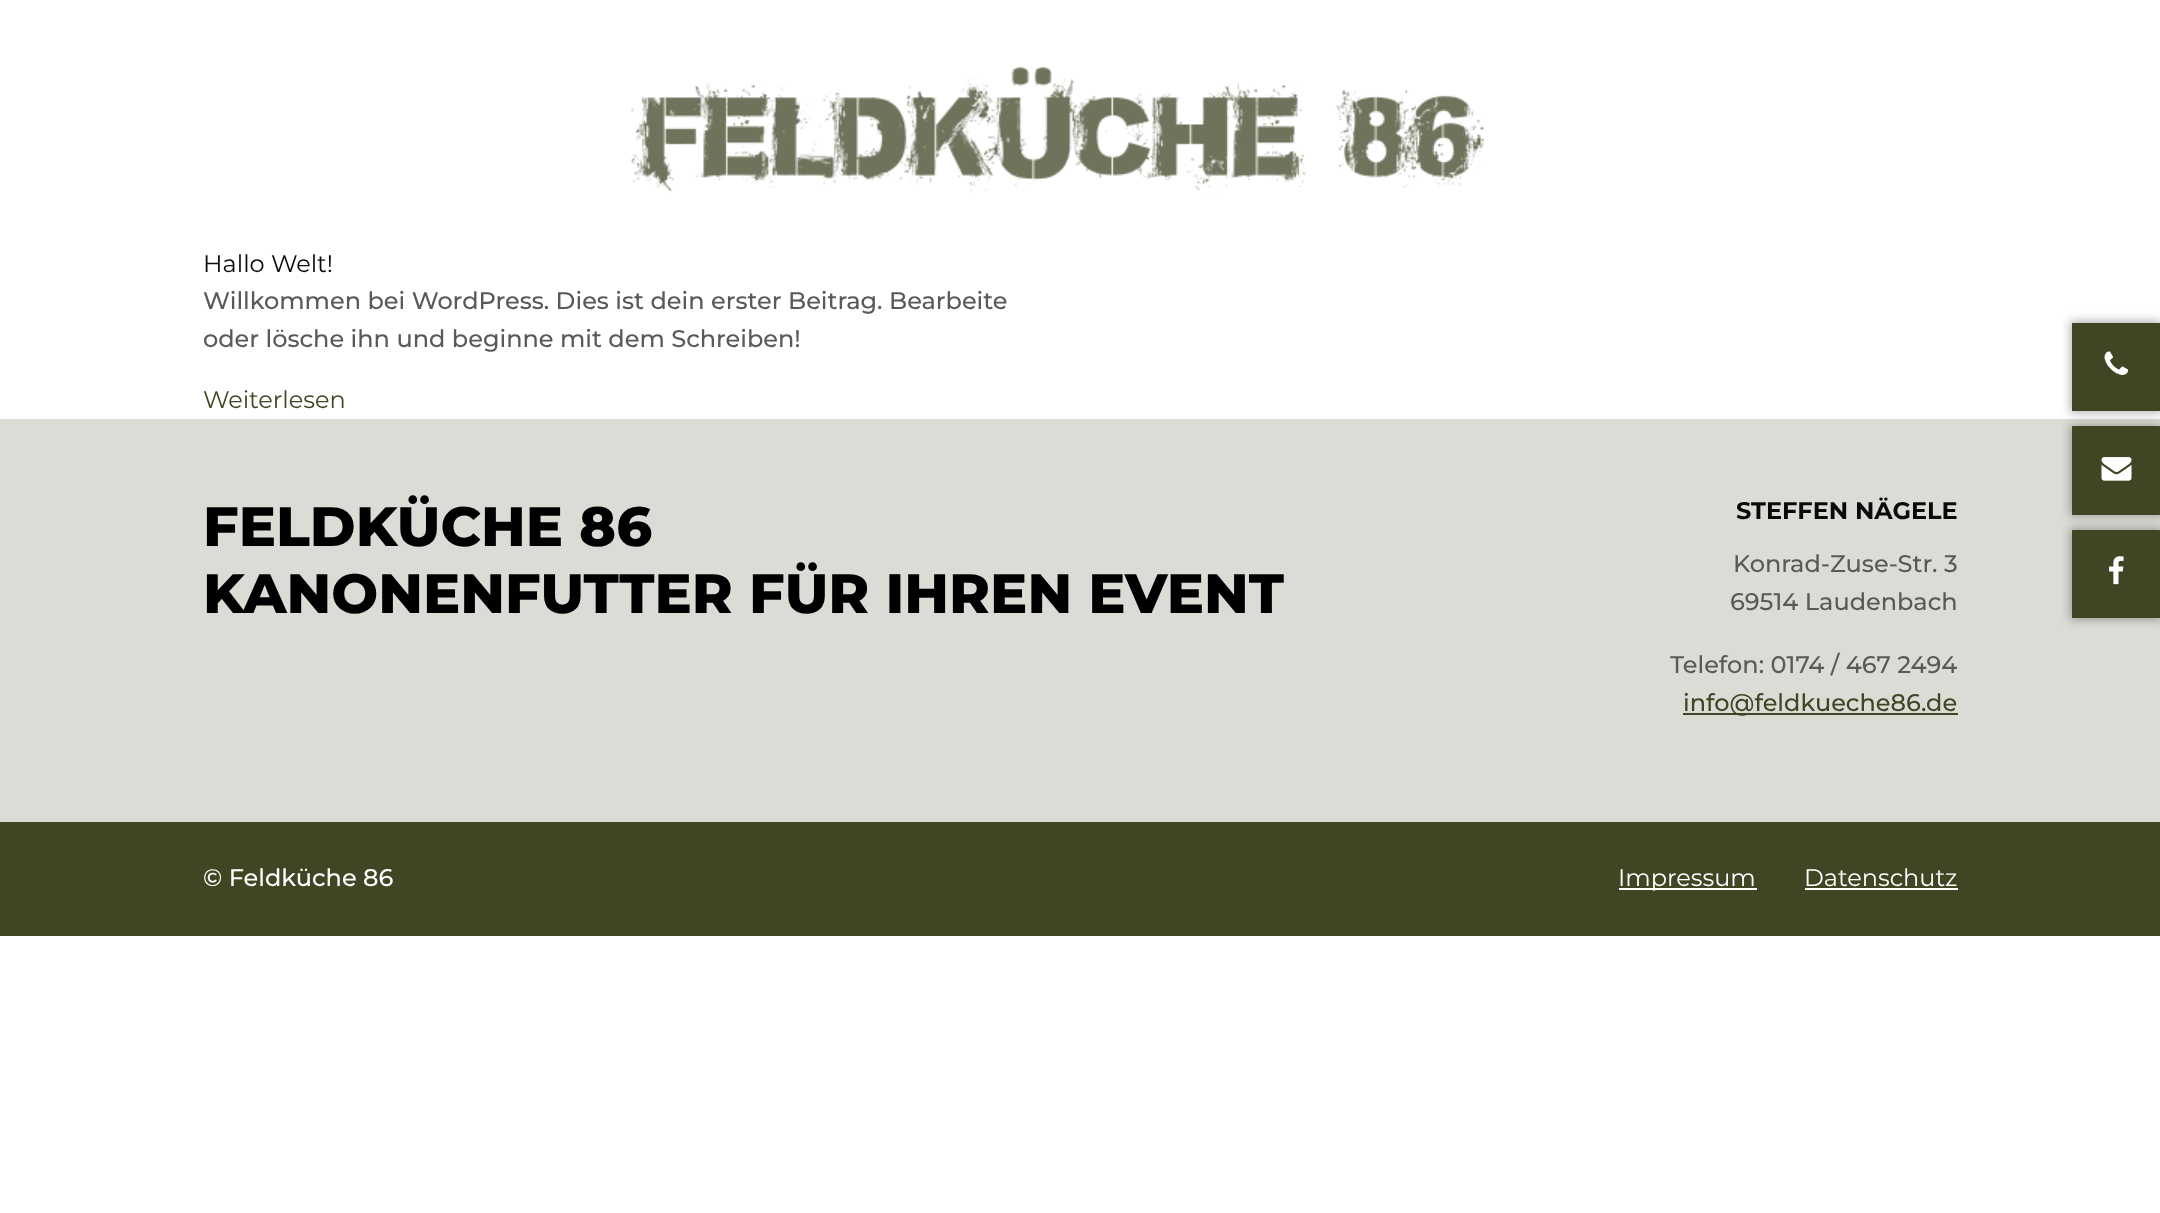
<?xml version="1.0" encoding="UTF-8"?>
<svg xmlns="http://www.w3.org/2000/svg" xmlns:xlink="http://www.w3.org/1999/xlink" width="2160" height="1213">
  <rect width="100%" height="100%" fill="#ffffff" />
  <image x="631" y="67" width="853" height="129" xlink:href="image1.png" />
  <rect y="419" width="2160" height="403" fill="#dbdcd6" />
  <rect x="2070" y="321" width="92" height="92" fill="#000000" fill-opacity="0.29" filter="blur(5px)" />
  <rect x="2072" y="323" width="88" height="88" fill="#3e4623" />
  <image x="2104" y="351" width="24" height="24" xlink:href="image2.png" />
  <rect x="2070" y="425" width="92" height="91" fill="#000000" fill-opacity="0.29" filter="blur(5px)" />
  <rect x="2072" y="426" width="88" height="89" fill="#3e4623" />
  <image x="2101" y="457" width="31" height="24" xlink:href="image3.png" />
  <rect x="2070" y="528" width="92" height="92" fill="#000000" fill-opacity="0.29" filter="blur(5px)" />
  <rect x="2072" y="530" width="88" height="88" fill="#3e4623" />
  <image x="2109" y="556" width="15" height="29" xlink:href="image4.png" />
  <rect x="1683" y="713" width="275" height="2" fill="#3e4623" />
  <rect y="822" width="2160" height="114" fill="#3e4623" />
  <rect x="1619" y="888" width="138" height="2" fill="#ffffff" />
  <rect x="1805" y="888" width="153" height="2" fill="#ffffff" />
  <text x="203" y="272" style="font-family: Montserrat; font-size: 24px; fill: #0a0a0a">Hallo Welt!</text>
  <text x="203" y="309" style="font-family: Montserrat; font-size: 24px; font-weight: 500; fill: #595959">Willkommen bei WordPress. Dies ist dein erster Beitrag. Bearbeite</text>
  <text x="203" y="347" style="font-family: Montserrat; font-size: 24px; font-weight: 500; fill: #595959">oder lösche ihn und beginne mit dem Schreiben!</text>
  <text x="203" y="408" style="font-family: Montserrat; font-size: 24px; fill: #3e4623">Weiterlesen</text>
  <text x="203" y="546" style="font-family: Montserrat; font-size: 55.5px; font-weight: 800; fill: #000000">FELDKÜCHE 86</text>
  <text x="203" y="613" style="font-family: Montserrat; font-size: 55.5px; font-weight: 800; fill: #000000">KANONENFUTTER FÜR IHREN EVENT</text>
  <text x="1736" y="519" style="font-family: Montserrat; font-size: 24px; font-weight: bold; fill: #0a0a0a">STEFFEN NÄGELE</text>
  <text x="1733" y="572" style="font-family: Montserrat; font-size: 24px; font-weight: 500; fill: #595959">Konrad-Zuse-Str. 3</text>
  <text x="1730" y="610" style="font-family: Montserrat; font-size: 24px; font-weight: 500; fill: #595959">69514 Laudenbach</text>
  <text x="1670" y="673" style="font-family: Montserrat; font-size: 24px; font-weight: 500; fill: #595959">Telefon: 0174 / 467 2494</text>
  <text x="1683" y="711" style="font-family: Montserrat; font-size: 24px; font-weight: 500; fill: #3e4623">info@feldkueche86.de</text>
  <text x="203" y="886" style="font-family: Montserrat; font-size: 24px; font-weight: 500; fill: #ffffff">© Feldküche 86</text>
  <text x="1618" y="886" style="font-family: Montserrat; font-size: 24px; fill: #ffffff">Impressum</text>
  <text x="1804" y="886" style="font-family: Montserrat; font-size: 24px; fill: #ffffff">Datenschutz</text>
</svg>
